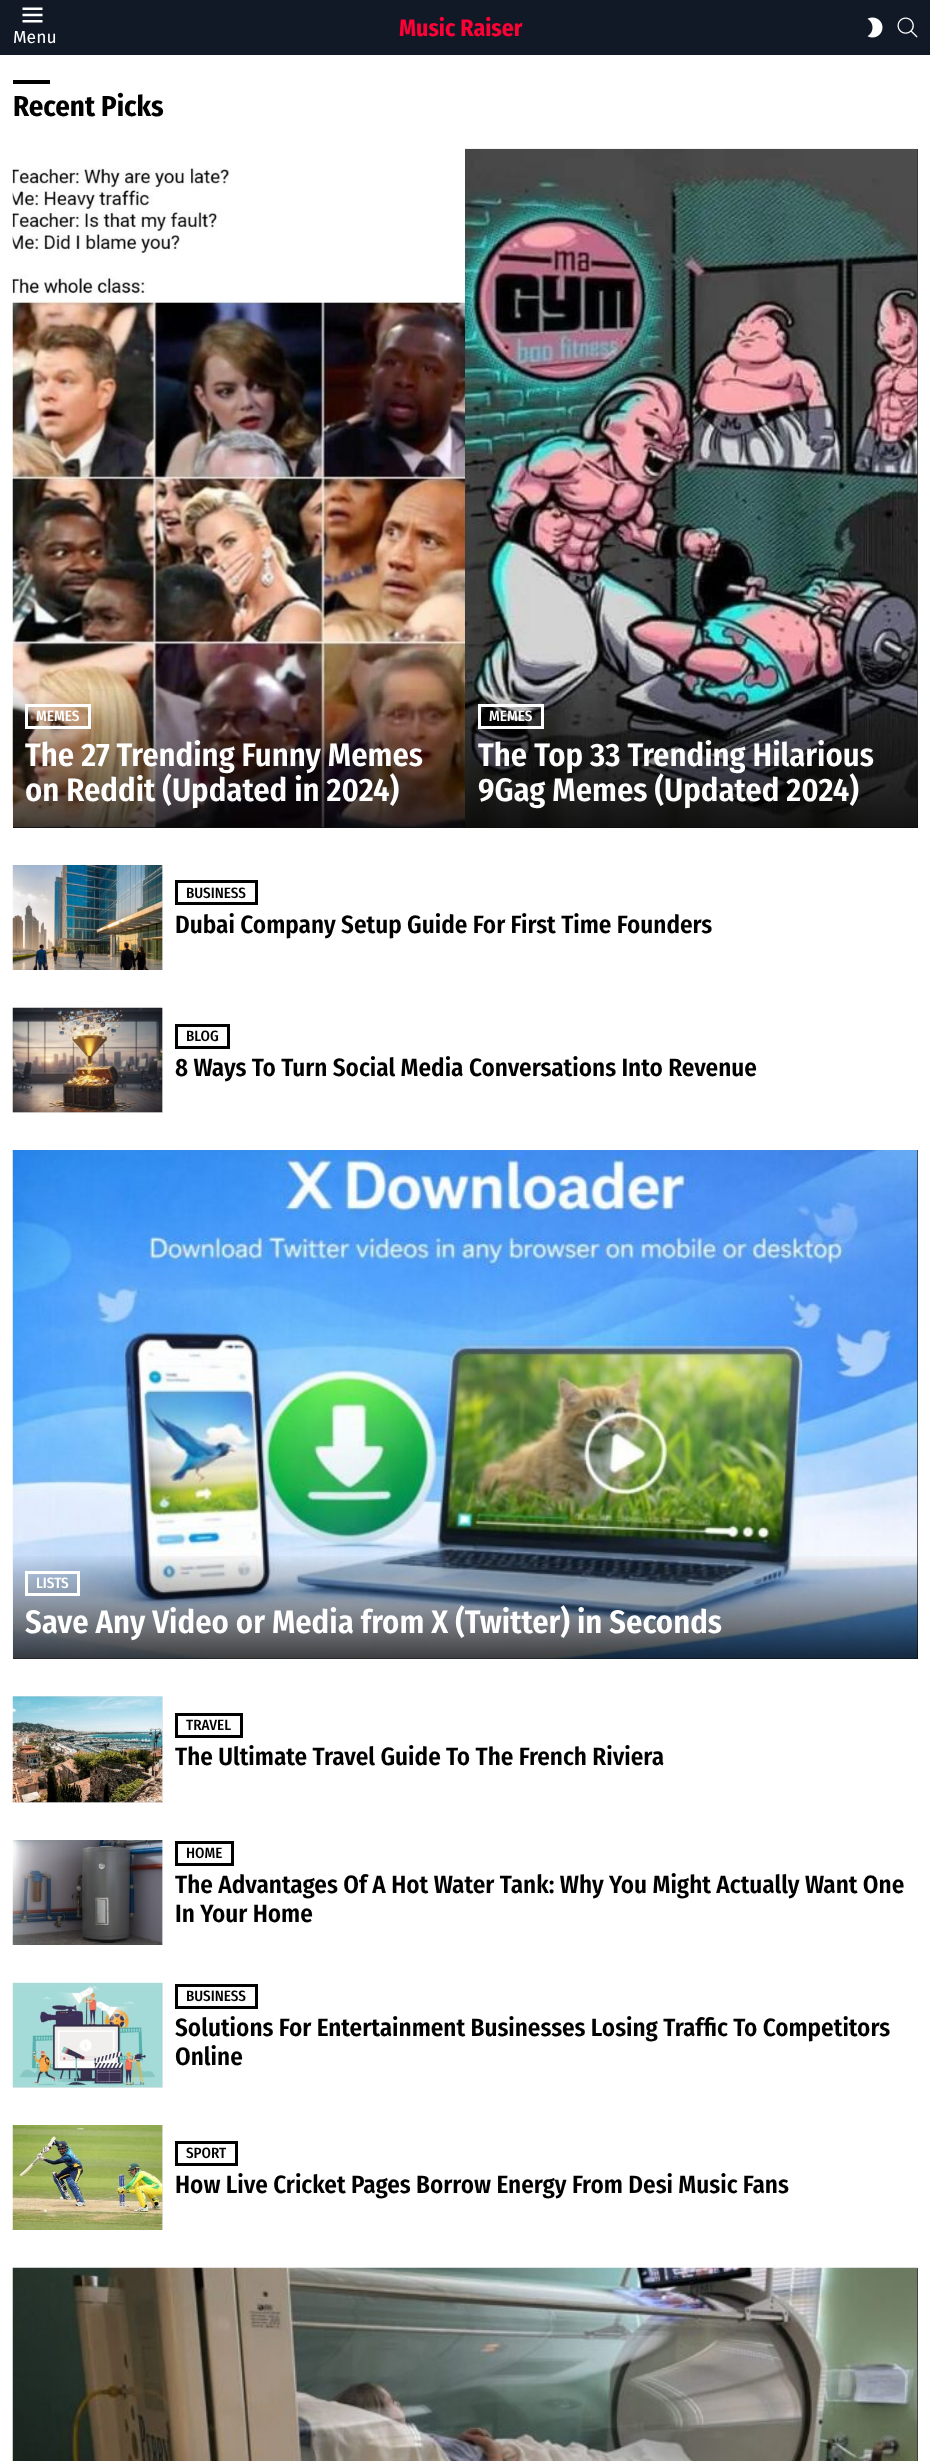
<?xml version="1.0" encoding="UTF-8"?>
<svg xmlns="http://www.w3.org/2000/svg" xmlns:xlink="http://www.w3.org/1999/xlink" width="930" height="2461">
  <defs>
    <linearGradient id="g1" gradientUnits="userSpaceOnUse" x1="239" y1="685" x2="239" y2="828"><stop offset="0" stop-color="#000000" stop-opacity="0" /><stop offset="1" stop-color="#000000" stop-opacity="0.75" /></linearGradient>
    <linearGradient id="g2" gradientUnits="userSpaceOnUse" x1="691" y1="685" x2="691" y2="828"><stop offset="0" stop-color="#000000" stop-opacity="0" /><stop offset="1" stop-color="#000000" stop-opacity="0.75" /></linearGradient>
    <linearGradient id="g3" gradientUnits="userSpaceOnUse" x1="465" y1="1553" x2="465" y2="1659"><stop offset="0" stop-color="#000000" stop-opacity="0" /><stop offset="1" stop-color="#000000" stop-opacity="0.75" /></linearGradient>
  </defs>
  <rect width="100%" height="100%" fill="#ffffff" />
  <rect width="930" height="55" fill="#101925" />
  <image x="22" y="7" width="21" height="16" xlink:href="image1.png" />
  <image x="867" y="17" width="16" height="21" xlink:href="image2.png" />
  <image x="897" y="17" width="21" height="21" xlink:href="image3.png" />
  <rect x="13" y="80" width="37" height="4" fill="#000000" />
  <rect x="13" y="827" width="452" height="1" fill="#333333" />
  <image x="12" y="149" width="453" height="679" xlink:href="image4.png" />
  <rect x="13" y="689" width="452" height="139" fill="url(#g1)" />
  <rect x="26.5" y="705.5" width="63" height="22" fill="none" stroke="#ffffff" stroke-width="3" />
  <rect x="465" y="149" width="453" height="679" fill="#333333" />
  <image x="465" y="148" width="453" height="680" xlink:href="image5.png" />
  <rect x="465" y="689" width="453" height="139" fill="url(#g2)" />
  <rect x="479.5" y="705.5" width="63" height="22" fill="none" stroke="#ffffff" stroke-width="3" />
  <rect x="162" y="865" width="1" height="105" fill="#e6e6e6" />
  <image x="12" y="865" width="151" height="105" xlink:href="image6.png" />
  <rect x="176.5" y="881.5" width="80" height="22" fill="none" stroke="#000000" stroke-width="3" />
  <rect x="13" y="1008" width="150" height="105" fill="#e6e6e6" />
  <image x="12" y="1007" width="151" height="106" xlink:href="image7.png" />
  <rect x="176.5" y="1025.5" width="52" height="22" fill="none" stroke="#000000" stroke-width="3" />
  <rect x="13" y="1150" width="905" height="509" fill="#333333" />
  <image x="12" y="1150" width="906" height="509" xlink:href="image8.png" />
  <rect x="13" y="1556" width="905" height="103" fill="url(#g3)" />
  <rect x="26.5" y="1572.5" width="52" height="22" fill="none" stroke="#ffffff" stroke-width="3" />
  <rect x="13" y="1696" width="150" height="107" fill="#e6e6e6" />
  <image x="12" y="1696" width="151" height="107" xlink:href="image9.png" />
  <rect x="176.5" y="1714.5" width="65" height="22" fill="none" stroke="#000000" stroke-width="3" />
  <rect x="162" y="1840" width="1" height="105" fill="#e6e6e6" />
  <image x="12" y="1840" width="151" height="105" xlink:href="image10.png" />
  <rect x="176.5" y="1842.5" width="56" height="22" fill="none" stroke="#000000" stroke-width="3" />
  <rect x="13" y="1983" width="150" height="105" fill="#e6e6e6" />
  <image x="12" y="1982" width="151" height="106" xlink:href="image11.png" />
  <rect x="176.5" y="1985.5" width="80" height="22" fill="none" stroke="#000000" stroke-width="3" />
  <rect x="162" y="2125" width="1" height="105" fill="#e6e6e6" />
  <image x="12" y="2125" width="151" height="105" xlink:href="image12.png" />
  <rect x="176.5" y="2142.5" width="60" height="22" fill="none" stroke="#000000" stroke-width="3" />
  <rect x="917" y="2268" width="1" height="193" fill="#333333" />
  <image x="12" y="2267" width="906" height="194" xlink:href="image13.png" />
  <text x="13" y="43" style="font-family: Fira Sans; font-size: 17.5px; fill: #ffffff">Menu</text>
  <text x="399" y="36" style="font-family: Fira Sans Condensed; font-size: 23.75px; font-weight: bold; fill: #ff0036">Music Raiser</text>
  <text x="13" y="116" style="font-family: Fira Sans Condensed; font-size: 28.75px; font-weight: bold; fill: #000000">Recent Picks</text>
  <text x="36" y="721" style="font-family: Fira Sans Condensed; font-size: 15px; font-weight: 500; fill: #ffffff">MEMES</text>
  <text x="25" y="766" style="font-family: Fira Sans Condensed; font-size: 32.5px; font-weight: 600; fill: #ffffff">The 27 Trending Funny Memes</text>
  <text x="25" y="801" style="font-family: Fira Sans Condensed; font-size: 32.5px; font-weight: 600; fill: #ffffff">on Reddit (Updated in 2024)</text>
  <text x="489" y="721" style="font-family: Fira Sans Condensed; font-size: 15px; font-weight: 500; fill: #ffffff">MEMES</text>
  <text x="478" y="766" style="font-family: Fira Sans Condensed; font-size: 32.5px; font-weight: 600; fill: #ffffff">The Top 33 Trending Hilarious</text>
  <text x="478" y="801" style="font-family: Fira Sans Condensed; font-size: 32.5px; font-weight: 600; fill: #ffffff">9Gag Memes (Updated 2024)</text>
  <text x="186" y="898" style="font-family: Fira Sans Condensed; font-size: 15px; font-weight: 500; fill: #000000">BUSINESS</text>
  <text x="175" y="933" style="font-family: Fira Sans Condensed; font-size: 25px; font-weight: 600; fill: #000000">Dubai Company Setup Guide For First Time Founders</text>
  <text x="186" y="1041" style="font-family: Fira Sans Condensed; font-size: 15px; font-weight: 500; fill: #000000">BLOG</text>
  <text x="175" y="1076" style="font-family: Fira Sans Condensed; font-size: 25px; font-weight: 600; fill: #000000">8 Ways To Turn Social Media Conversations Into Revenue</text>
  <text x="36" y="1588" style="font-family: Fira Sans Condensed; font-size: 15px; font-weight: 500; fill: #ffffff">LISTS</text>
  <text x="25" y="1633" style="font-family: Fira Sans Condensed; font-size: 32.5px; font-weight: 600; fill: #ffffff">Save Any Video or Media from X (Twitter) in Seconds</text>
  <text x="186" y="1730" style="font-family: Fira Sans Condensed; font-size: 15px; font-weight: 500; fill: #000000">TRAVEL</text>
  <text x="175" y="1765" style="font-family: Fira Sans Condensed; font-size: 25px; font-weight: 600; fill: #000000">The Ultimate Travel Guide To The French Riviera</text>
  <text x="186" y="1858" style="font-family: Fira Sans Condensed; font-size: 15px; font-weight: 500; fill: #000000">HOME</text>
  <text x="175" y="1893" style="font-family: Fira Sans Condensed; font-size: 25px; font-weight: 600; fill: #000000">The Advantages Of A Hot Water Tank: Why You Might Actually Want One</text>
  <text x="175" y="1922" style="font-family: Fira Sans Condensed; font-size: 25px; font-weight: 600; fill: #000000">In Your Home</text>
  <text x="186" y="2001" style="font-family: Fira Sans Condensed; font-size: 15px; font-weight: 500; fill: #000000">BUSINESS</text>
  <text x="175" y="2036" style="font-family: Fira Sans Condensed; font-size: 25px; font-weight: 600; fill: #000000">Solutions For Entertainment Businesses Losing Traffic To Competitors</text>
  <text x="175" y="2065" style="font-family: Fira Sans Condensed; font-size: 25px; font-weight: 600; fill: #000000">Online</text>
  <text x="186" y="2158" style="font-family: Fira Sans Condensed; font-size: 15px; font-weight: 500; fill: #000000">SPORT</text>
  <text x="175" y="2193" style="font-family: Fira Sans Condensed; font-size: 25px; font-weight: 600; fill: #000000">How Live Cricket Pages Borrow Energy From Desi Music Fans</text>
</svg>
